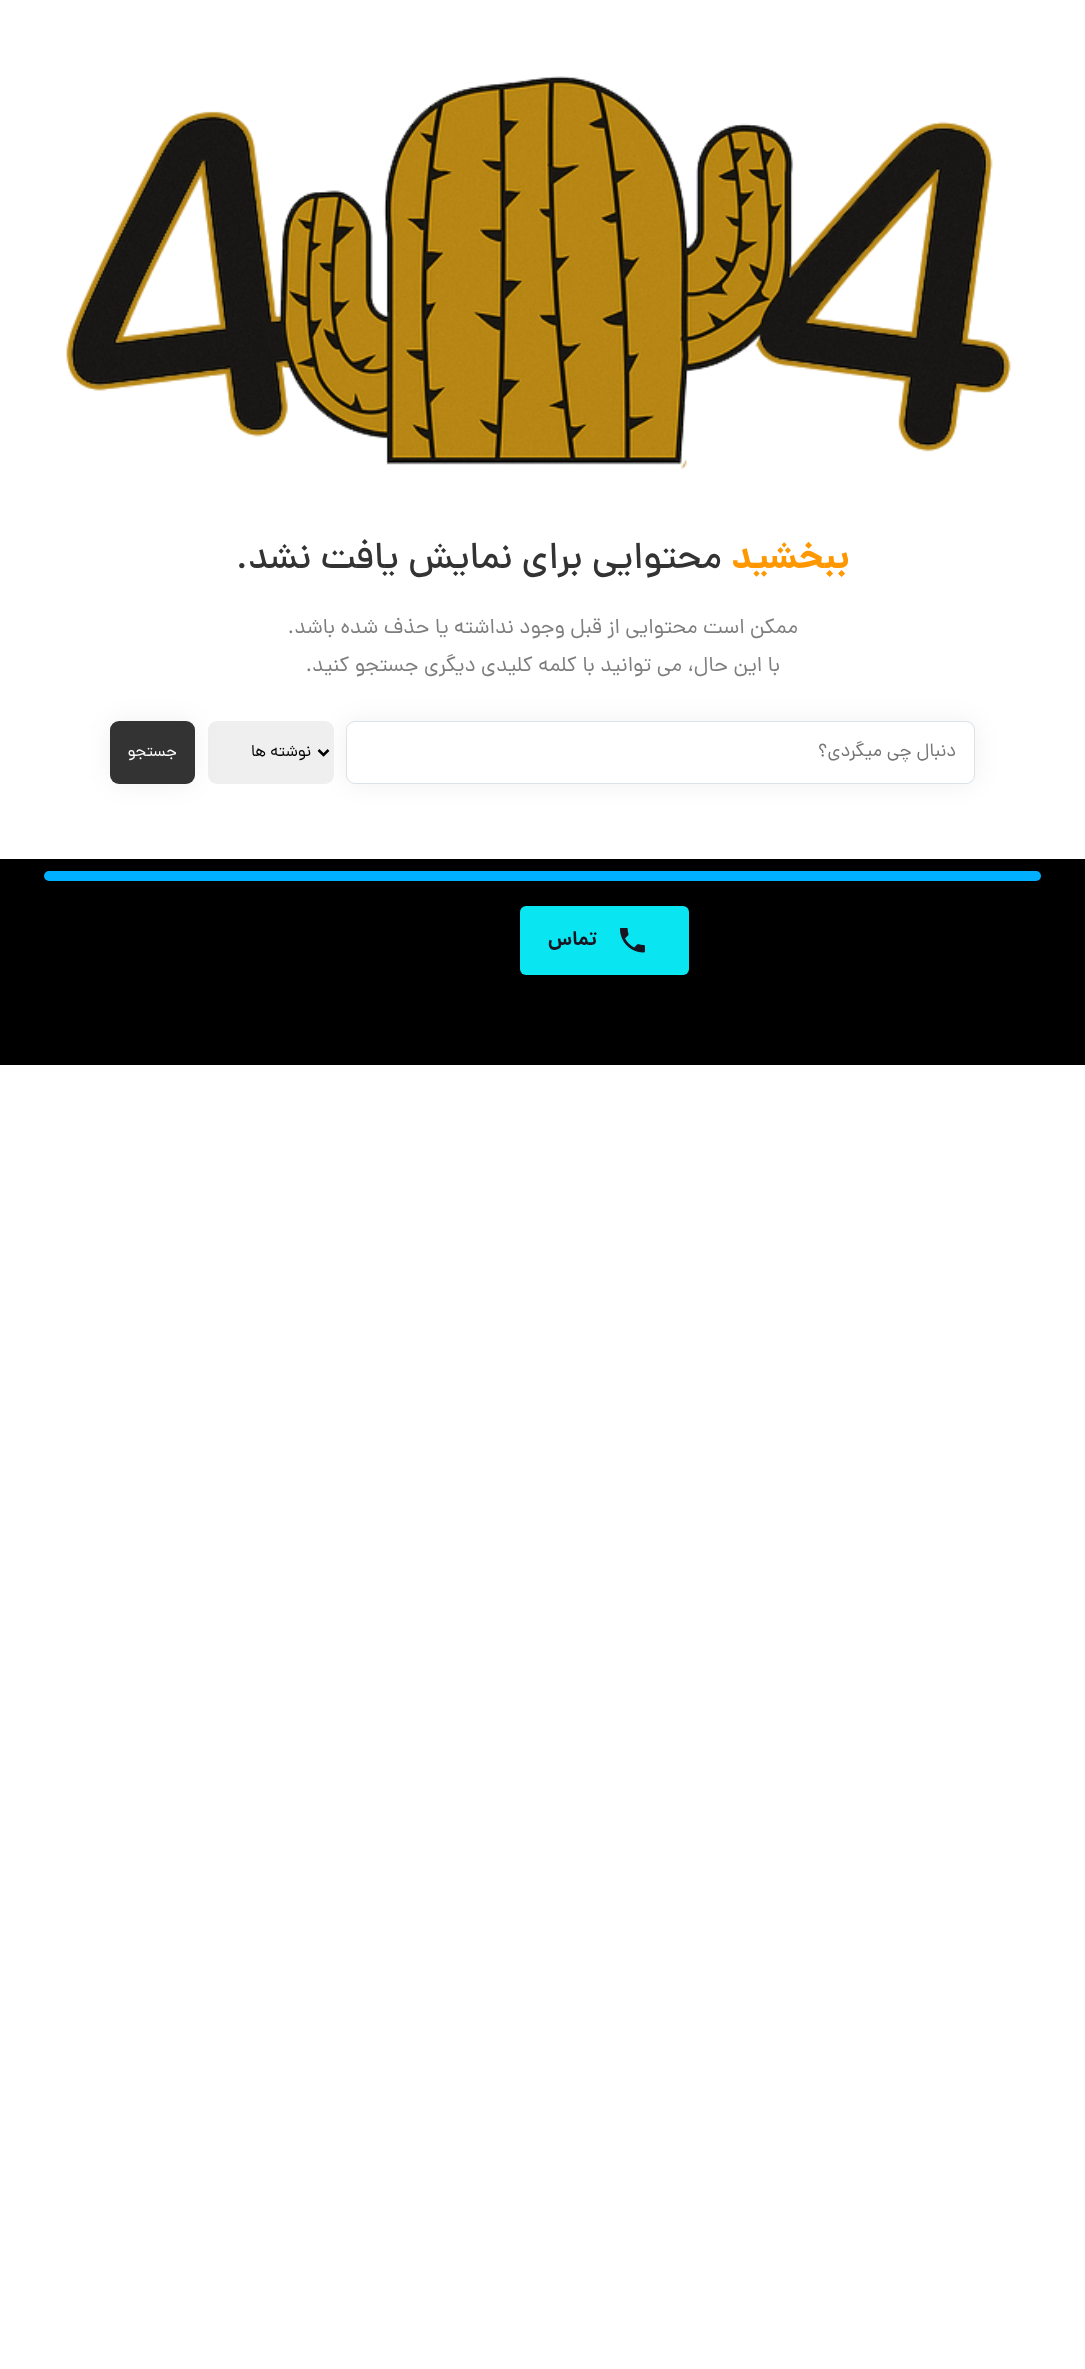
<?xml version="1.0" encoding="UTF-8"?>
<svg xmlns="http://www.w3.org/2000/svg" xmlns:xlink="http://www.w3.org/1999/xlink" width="1085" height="2369">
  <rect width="100%" height="100%" fill="#ffffff" />
  <image x="66" y="76" width="945" height="394" xlink:href="image1.png" />
  <rect x="346" y="721" width="629" height="63" rx="9" fill="#000000" fill-opacity="0.06" filter="blur(12.5px)" />
  <rect x="346.5" y="721.5" width="628" height="62" rx="8.5" fill="#ffffff" stroke="#dbe2e8" />
  <rect x="208" y="721" width="126" height="63" rx="9" fill="#efefef" />
  <path d="M 318.5 750 l 5 5 l 5 -5" fill="none" stroke="#000000" stroke-width="2.5" />
  <rect x="110" y="721" width="85" height="63" rx="9" fill="#000000" fill-opacity="0.06" filter="blur(12.5px)" />
  <rect x="110" y="721" width="85" height="63" rx="9" fill="#333333" />
  <rect y="859" width="1085" height="206" fill="#000000" />
  <rect x="44" y="871" width="997" height="10" rx="5" fill="#00b0ff" />
  <rect x="520" y="906" width="169" height="69" rx="6" fill="#09e6f2" />
  <image x="620" y="928" width="25" height="25" xlink:href="image2.png" />
  <text x="850" y="568" style="font-family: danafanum; font-size: 37.5px; font-weight: bold; direction: rtl; fill: #ff9800">ببخشید</text>
  <text x="722" y="568" style="font-family: danafanum; font-size: 37.5px; font-weight: 500; direction: rtl; fill: #333333">محتوایی برای نمایش یافت نشد.</text>
  <text x="798" y="633" style="font-family: danafanum; font-size: 21.25px; direction: rtl; fill: #7e7e7e">ممکن است محتوایی از قبل وجود نداشته یا حذف شده باشد.</text>
  <text x="780" y="671" style="font-family: danafanum; font-size: 21.25px; direction: rtl; fill: #7e7e7e">با این حال، می توانید با کلمه کلیدی دیگری جستجو کنید.</text>
  <text x="956" y="756" style="font-family: danafanum; font-size: 18.75px; direction: rtl; fill: #757575">دنبال چی میگردی؟</text>
  <text x="311" y="756" style="font-family: danafanum; font-size: 16.5px; direction: rtl; fill: #000000">نوشته ها</text>
  <text x="177" y="756" style="font-family: danafanum; font-size: 16.5px; direction: rtl; fill: #ffffff">جستجو</text>
  <text x="597" y="945" style="font-family: danafanum; font-size: 20px; font-weight: bold; direction: rtl; fill: #181522">تماس</text>
</svg>
